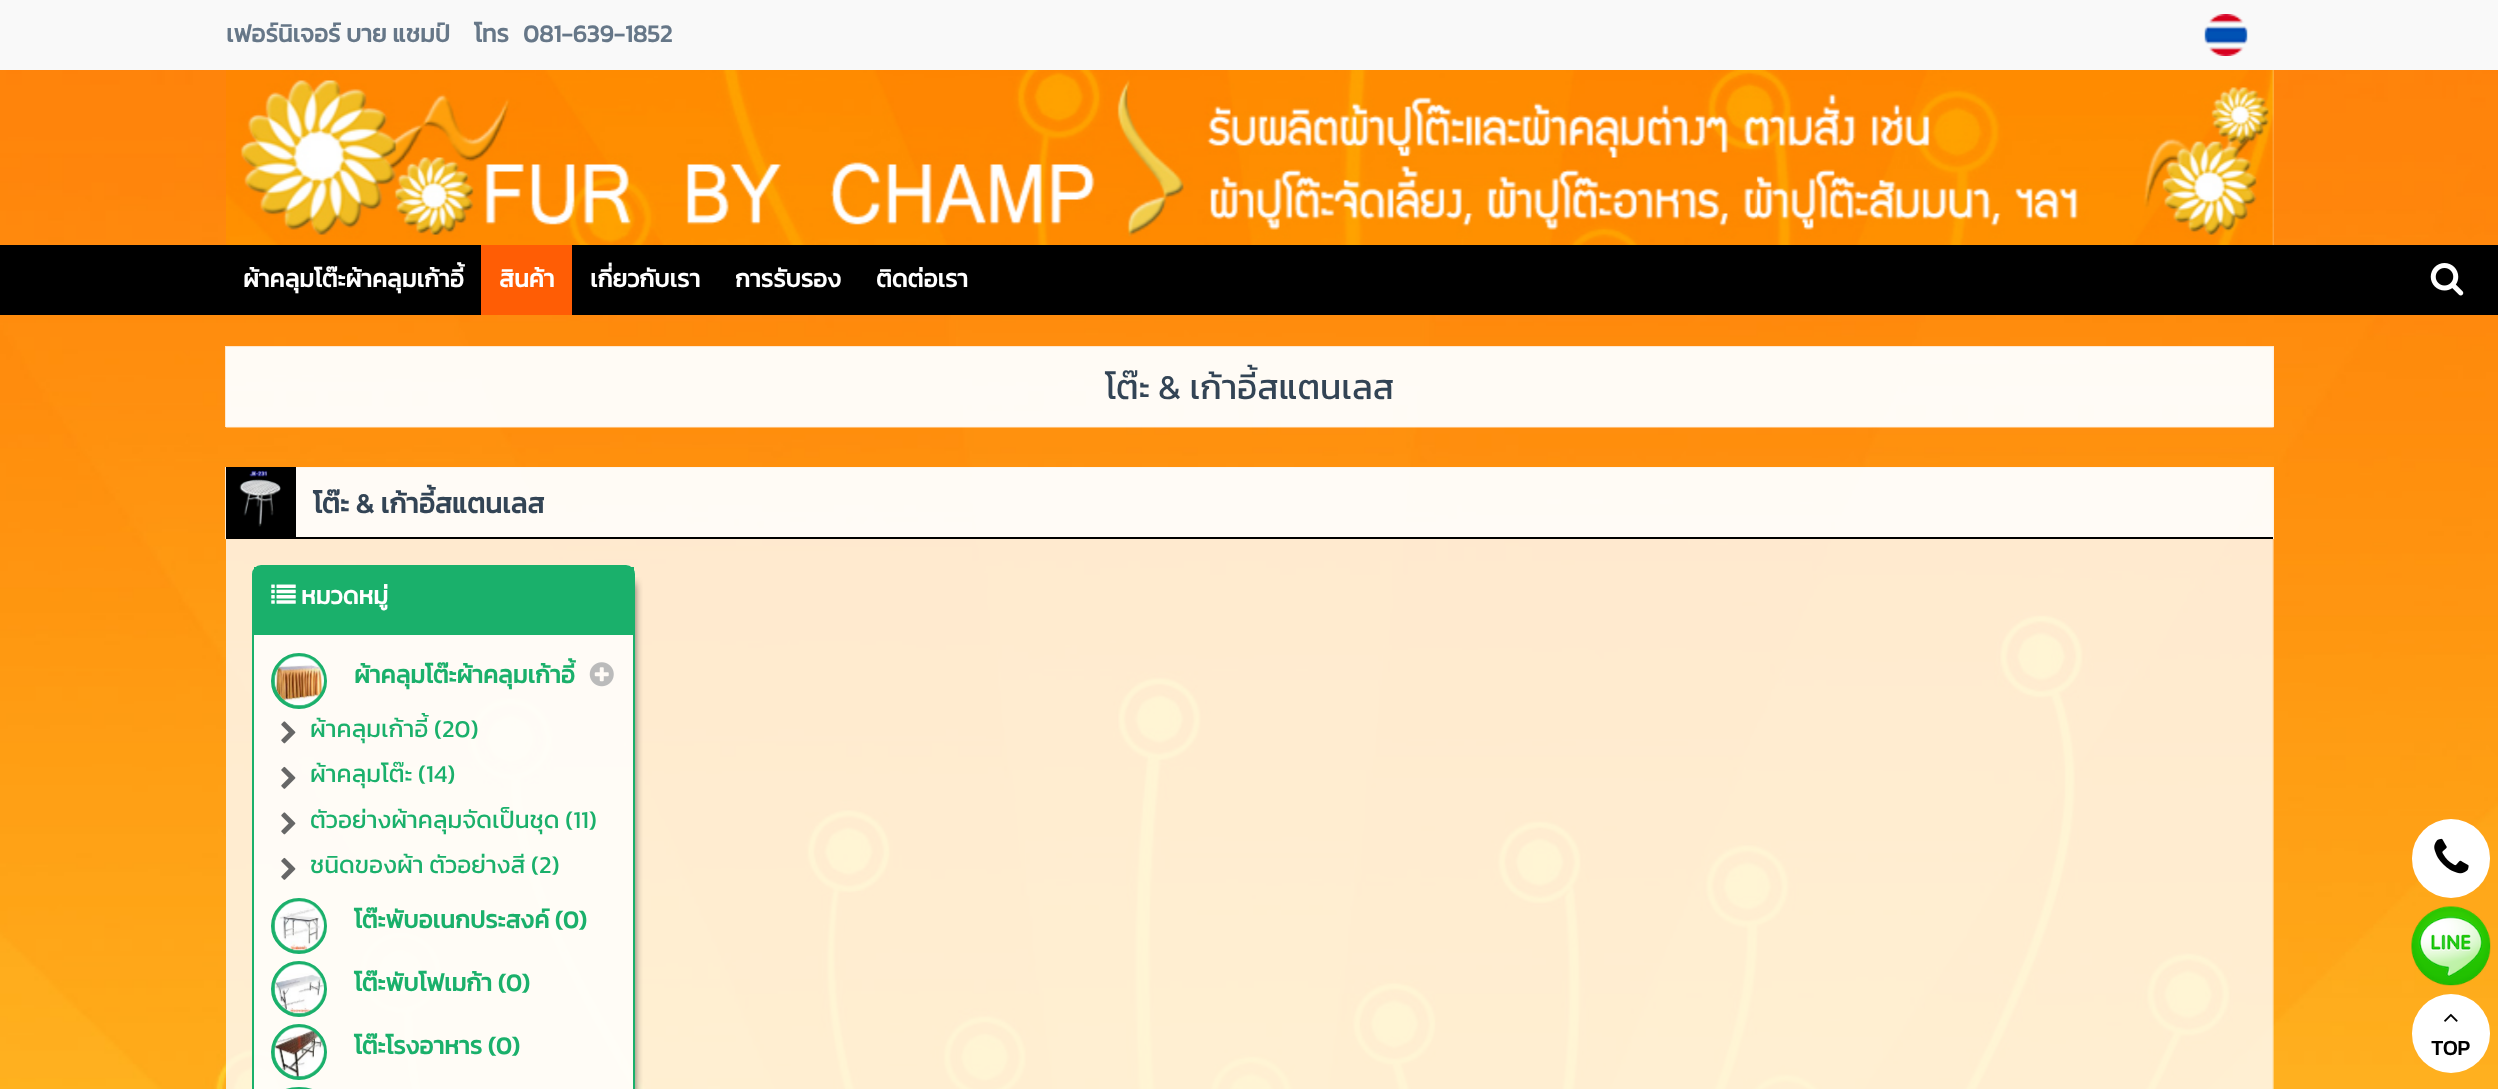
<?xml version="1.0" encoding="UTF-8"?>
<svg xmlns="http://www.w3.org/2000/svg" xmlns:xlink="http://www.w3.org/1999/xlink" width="2498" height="1089">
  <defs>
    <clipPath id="clip1"><rect x="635" y="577" width="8" height="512" /></clipPath>
  </defs>
  <rect width="100%" height="100%" fill="#ffffff" />
  <image x="0" y="70" width="2498" height="1019" xlink:href="image1.png" />
  <rect width="2498" height="70" fill="#f9f9f9" />
  <image x="2204" y="14" width="44" height="42" xlink:href="image2.png" />
  <image x="2272" y="70" width="2" height="175" xlink:href="image3.png" />
  <image x="226" y="70" width="2048" height="175" xlink:href="image4.png" />
  <rect y="245" width="2498" height="70" fill="#000000" />
  <rect x="481" y="245" width="91" height="70" fill="#ff5d05" />
  <image x="2430" y="263" width="34" height="33" xlink:href="image5.png" />
  <image x="226" y="347" width="2048" height="81" xlink:href="image6.png" />
  <rect x="225" y="346" width="2049" height="81" fill="#ffffff" fill-opacity="0.8" />
  <image x="226" y="467" width="2048" height="622" xlink:href="image7.png" />
  <rect x="225" y="467" width="2049" height="72" fill="#ffffff" fill-opacity="0.8" />
  <rect x="226" y="467" width="70" height="70" fill="#000000" />
  <image x="239" y="470" width="42" height="57" xlink:href="image8.png" />
  <rect x="226" y="537" width="2047" height="2" fill="#000000" />
  <g clip-path="url(#clip1)">
    <rect x="268" y="583" width="366" height="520" fill="#000000" fill-opacity="0.75" filter="blur(4.5px)" />
  </g>
  <image x="252" y="565" width="384" height="524" xlink:href="image9.png" />
  <rect x="253" y="566" width="381" height="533" rx="8" fill="none" stroke="#1ab06b" stroke-width="2" />
  <rect x="254" y="567" width="380" height="68" fill="#1ab06b" />
  <image x="271" y="584" width="25" height="20" xlink:href="image10.png" />
  <circle cx="299" cy="681" r="26" fill="none" stroke="#1ab06b" stroke-width="4" />
  <image x="274" y="656" width="50" height="50" xlink:href="image11.png" />
  <image x="589" y="662" width="25" height="25" xlink:href="image12.png" />
  <image x="281" y="721" width="15" height="23" xlink:href="image13.png" />
  <image x="281" y="766" width="15" height="23" xlink:href="image14.png" />
  <image x="281" y="812" width="15" height="23" xlink:href="image13.png" />
  <image x="281" y="857" width="15" height="23" xlink:href="image14.png" />
  <circle cx="299" cy="926" r="26" fill="none" stroke="#1ab06b" stroke-width="4" />
  <image x="274" y="901" width="50" height="50" xlink:href="image15.png" />
  <circle cx="299" cy="989" r="26" fill="none" stroke="#1ab06b" stroke-width="4" />
  <image x="274" y="964" width="50" height="50" xlink:href="image16.png" />
  <circle cx="299" cy="1052" r="26" fill="none" stroke="#1ab06b" stroke-width="4" />
  <image x="274" y="1027" width="50" height="50" xlink:href="image17.png" />
  <rect x="273" y="1089" width="52" height="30" rx="26" fill="none" stroke="#1ab06b" stroke-width="4" />
  <rect x="2412" y="819" width="78" height="79" rx="39" fill="#ffffff" />
  <image x="2434" y="838" width="35" height="36" xlink:href="image18.png" />
  <image x="2411" y="906" width="80" height="80" xlink:href="image19.png" />
  <rect x="2412" y="994" width="78" height="79" rx="39" fill="#ffffff" />
  <image x="2444" y="1013" width="14" height="9" xlink:href="image20.png" />
  <text x="226" y="42" style="font-family: Kanit; font-size: 24.5px; font-weight: bold; fill: #667788">เฟอร์นิเจอร์ บาย แชมป์</text>
  <text x="474" y="42" style="font-family: Kanit; font-size: 24.5px; font-weight: bold; fill: #667788">โทร</text>
  <text x="523" y="42" style="font-family: Kanit; font-size: 24.5px; font-weight: bold; fill: #667788">081-639-1852</text>
  <text x="243" y="287" style="font-family: Kanit; font-size: 24.5px; font-weight: bold; fill: #ffffff">ผ้าคลุมโต๊ะผ้าคลุมเก้าอี้</text>
  <text x="499" y="287" style="font-family: Kanit; font-size: 24.5px; font-weight: bold; fill: #ffffff">สินค้า</text>
  <text x="590" y="287" style="font-family: Kanit; font-size: 24.5px; font-weight: bold; fill: #ffffff">เกี่ยวกับเรา</text>
  <text x="735" y="287" style="font-family: Kanit; font-size: 24.5px; font-weight: bold; fill: #ffffff">การรับรอง</text>
  <text x="876" y="287" style="font-family: Kanit; font-size: 24.5px; font-weight: bold; fill: #ffffff">ติดต่อเรา</text>
  <text x="1105" y="399" style="font-family: Kanit; font-size: 35px; fill: #334455">โต๊ะ &amp; เก้าอี้สแตนเลส</text>
  <text x="313" y="513" style="font-family: Kanit; font-size: 28px; font-weight: bold; fill: #334455">โต๊ะ &amp; เก้าอี้สแตนเลส</text>
  <text x="301" y="604" style="font-family: Kanit; font-size: 24.5px; font-weight: bold; fill: #ffffff">หมวดหมู่</text>
  <text x="354" y="683" style="font-family: Kanit; font-size: 24.5px; font-weight: bold; fill: #1ab06b">ผ้าคลุมโต๊ะผ้าคลุมเก้าอี้</text>
  <text x="310" y="737" style="font-family: Kanit; font-size: 24.5px; fill: #1ab06b">ผ้าคลุมเก้าอี้ (20)</text>
  <text x="310" y="782" style="font-family: Kanit; font-size: 24.5px; fill: #1ab06b">ผ้าคลุมโต๊ะ (14)</text>
  <text x="310" y="828" style="font-family: Kanit; font-size: 24.5px; fill: #1ab06b">ตัวอย่างผ้าคลุมจัดเป็นชุด (11)</text>
  <text x="310" y="873" style="font-family: Kanit; font-size: 24.5px; fill: #1ab06b">ชนิดของผ้า ตัวอย่างสี (2)</text>
  <text x="354" y="928" style="font-family: Kanit; font-size: 24.5px; font-weight: bold; fill: #1ab06b">โต๊ะพับอเนกประสงค์ (0)</text>
  <text x="354" y="991" style="font-family: Kanit; font-size: 24.5px; font-weight: bold; fill: #1ab06b">โต๊ะพับโฟเมก้า (0)</text>
  <text x="354" y="1054" style="font-family: Kanit; font-size: 24.5px; font-weight: bold; fill: #1ab06b">โต๊ะโรงอาหาร (0)</text>
  <text x="2431" y="1055" style="font-family: Kanit; font-size: 21px; font-weight: bold; fill: #000000">TOP</text>
</svg>
